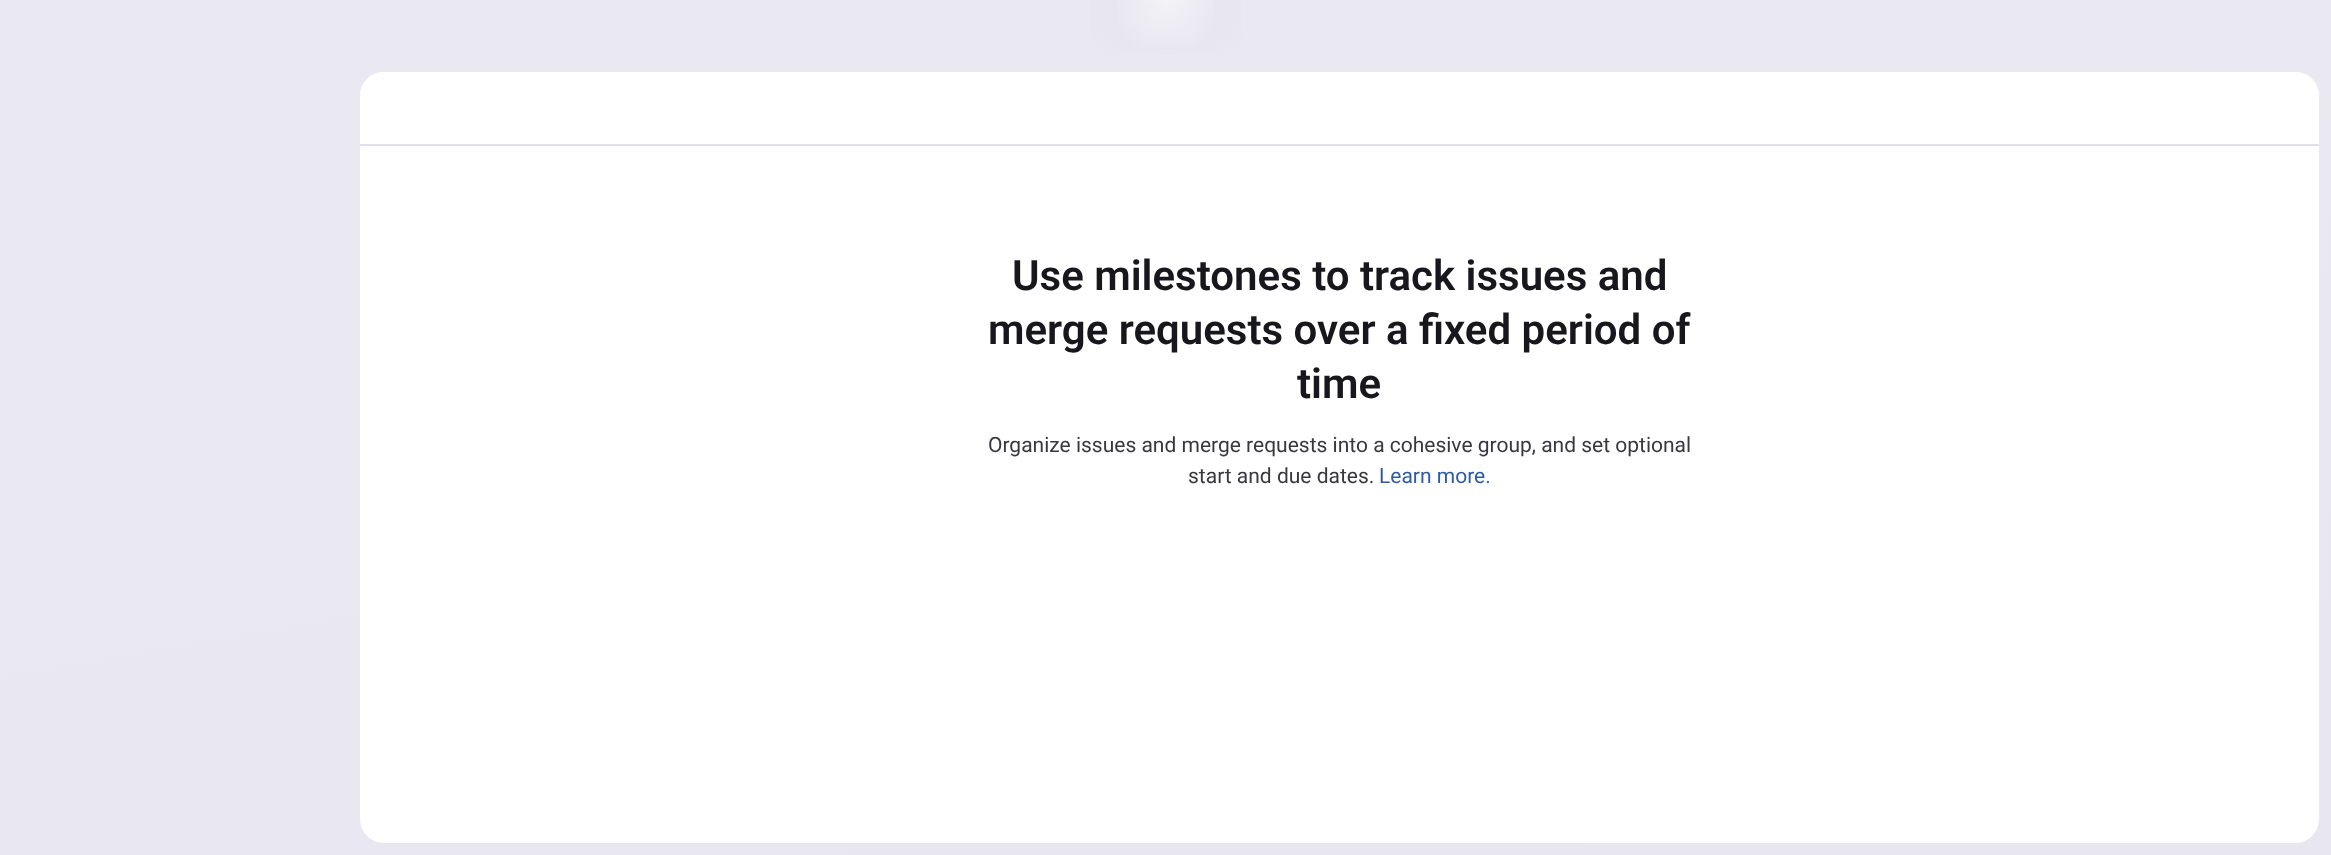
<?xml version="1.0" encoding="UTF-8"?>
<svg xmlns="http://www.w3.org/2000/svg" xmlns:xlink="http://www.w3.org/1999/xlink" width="2331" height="855">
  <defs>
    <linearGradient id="g1" gradientUnits="userSpaceOnUse" x1="1274" y1="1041" x2="1057" y2="-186"><stop offset="0" stop-color="#e8e6f0" /><stop offset="0.7" stop-color="#eae9f2" /></linearGradient>
    <radialGradient id="g2" gradientUnits="userSpaceOnUse" cx="0" cy="0" r="1" gradientTransform="matrix(1166 0 0 855 1166 0)"><stop offset="0" stop-color="#e4e2ed" /><stop offset="0.09" stop-color="#e4e2ed" stop-opacity="0" /></radialGradient>
    <radialGradient id="g3" gradientUnits="userSpaceOnUse" cx="0" cy="0" r="1" gradientTransform="matrix(1166 0 0 855 1166 0)"><stop offset="0" stop-color="#e4e2ec" /><stop offset="0.06" stop-color="#e4e2ec" stop-opacity="0" /></radialGradient>
    <radialGradient id="g4" gradientUnits="userSpaceOnUse" cx="1166" cy="0" r="1445"><stop offset="0" stop-color="#ffffff" stop-opacity="0.6" /><stop offset="0.04" stop-color="#ffffff" stop-opacity="0" /></radialGradient>
  </defs>
  <rect width="100%" height="100%" fill="#ffffff" />
  <rect width="2331" height="855" fill="url(#g1)" />
  <rect x="1090" width="152" height="55" fill="url(#g2)" />
  <rect x="1147" y="3" width="38" height="10" fill="url(#g3)" />
  <rect x="1117" width="98" height="48" fill="url(#g4)" />
  <rect x="360" y="72" width="1959" height="771" rx="24" fill="#ffffff" />
  <path d="M 384 72 h 1911 c 13.5 0 24 10.5 24 24 v 50 h -1959 v -50 c 0 -13.5 10.5 -24 24 -24 z" fill="#ffffff" />
  <rect x="360" y="144" width="1959" height="2" fill="#e1dfec" />
  <text x="1012" y="290" style="font-family: Roboto; font-size: 42px; font-weight: 600; fill: #18171d">Use milestones to track issues and</text>
  <text x="988" y="344" style="font-family: Roboto; font-size: 42px; font-weight: 600; fill: #18171d">merge requests over a fixed period of</text>
  <text x="1297" y="398" style="font-family: Roboto; font-size: 42px; font-weight: 600; fill: #18171d">time</text>
  <text x="988" y="452" style="font-family: Roboto; font-size: 21px; fill: #3a383f">Organize issues and merge requests into a cohesive group, and set optional</text>
  <text x="1188" y="483" style="font-family: Roboto; font-size: 21px; fill: #3a383f">start and due dates.</text>
  <text x="1379" y="483" style="font-family: Roboto; font-size: 21px; fill: #2f5ca0">Learn more.</text>
</svg>
